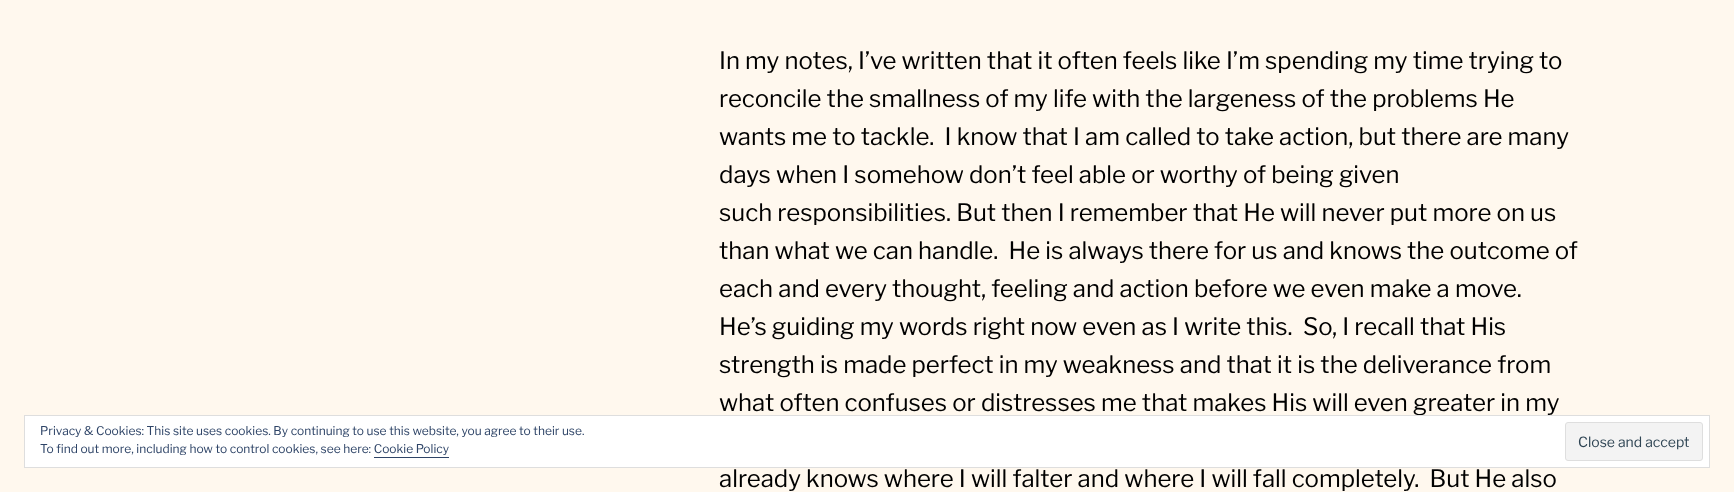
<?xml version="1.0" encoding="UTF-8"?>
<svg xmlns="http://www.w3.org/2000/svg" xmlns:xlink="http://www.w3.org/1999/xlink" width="1734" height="492">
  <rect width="100%" height="100%" fill="#fff8ee" />
  <text x="719" y="69" style="font-family: Libre Franklin; font-size: 24px; fill: #000000">In my notes, I’ve written that it often feels like I’m spending my time trying to</text>
  <text x="719" y="107" style="font-family: Libre Franklin; font-size: 24px; fill: #000000">reconcile the smallness of my life with the largeness of the problems He</text>
  <text x="719" y="145" style="font-family: Libre Franklin; font-size: 24px; fill: #000000" xml:space="preserve">wants me to tackle.  I know that I am called to take action, but there are many</text>
  <text x="719" y="183" style="font-family: Libre Franklin; font-size: 24px; fill: #000000">days when I somehow don’t feel able or worthy of being given</text>
  <text x="719" y="221" style="font-family: Libre Franklin; font-size: 24px; fill: #000000">such responsibilities. But then I remember that He will never put more on us</text>
  <text x="719" y="259" style="font-family: Libre Franklin; font-size: 24px; fill: #000000" xml:space="preserve">than what we can handle.  He is always there for us and knows the outcome of</text>
  <text x="719" y="297" style="font-family: Libre Franklin; font-size: 24px; fill: #000000">each and every thought, feeling and action before we even make a move.</text>
  <text x="719" y="335" style="font-family: Libre Franklin; font-size: 24px; fill: #000000" xml:space="preserve">He’s guiding my words right now even as I write this.  So, I recall that His</text>
  <text x="719" y="373" style="font-family: Libre Franklin; font-size: 24px; fill: #000000">strength is made perfect in my weakness and that it is the deliverance from</text>
  <text x="719" y="411" style="font-family: Libre Franklin; font-size: 24px; fill: #000000">what often confuses or distresses me that makes His will even greater in my</text>
  <text x="719" y="487" style="font-family: Libre Franklin; font-size: 24px; fill: #000000" xml:space="preserve">already knows where I will falter and where I will fall completely.  But He also</text>
  <rect x="24.5" y="415.5" width="1685" height="52" fill="#ffffff" stroke="#dedede" />
  <text x="40" y="435" style="font-family: Libre Franklin; font-size: 12px; fill: #2e4467">Privacy &amp; Cookies: This site uses cookies. By continuing to use this website, you agree to their use.</text>
  <text x="40" y="453" style="font-family: Libre Franklin; font-size: 12px; fill: #2e4467">To find out more, including how to control cookies, see here: Cookie Policy</text>
  <rect x="1565.5" y="422.5" width="137" height="38" rx="2.5" fill="#f3f3f3" stroke="#dedede" />
  <text x="1578" y="447" style="font-family: Libre Franklin; font-size: 14px; fill: #2e4453">Close and accept</text>
  <rect x="374" y="457" width="75" height="1" fill="#2e4467" />
</svg>
